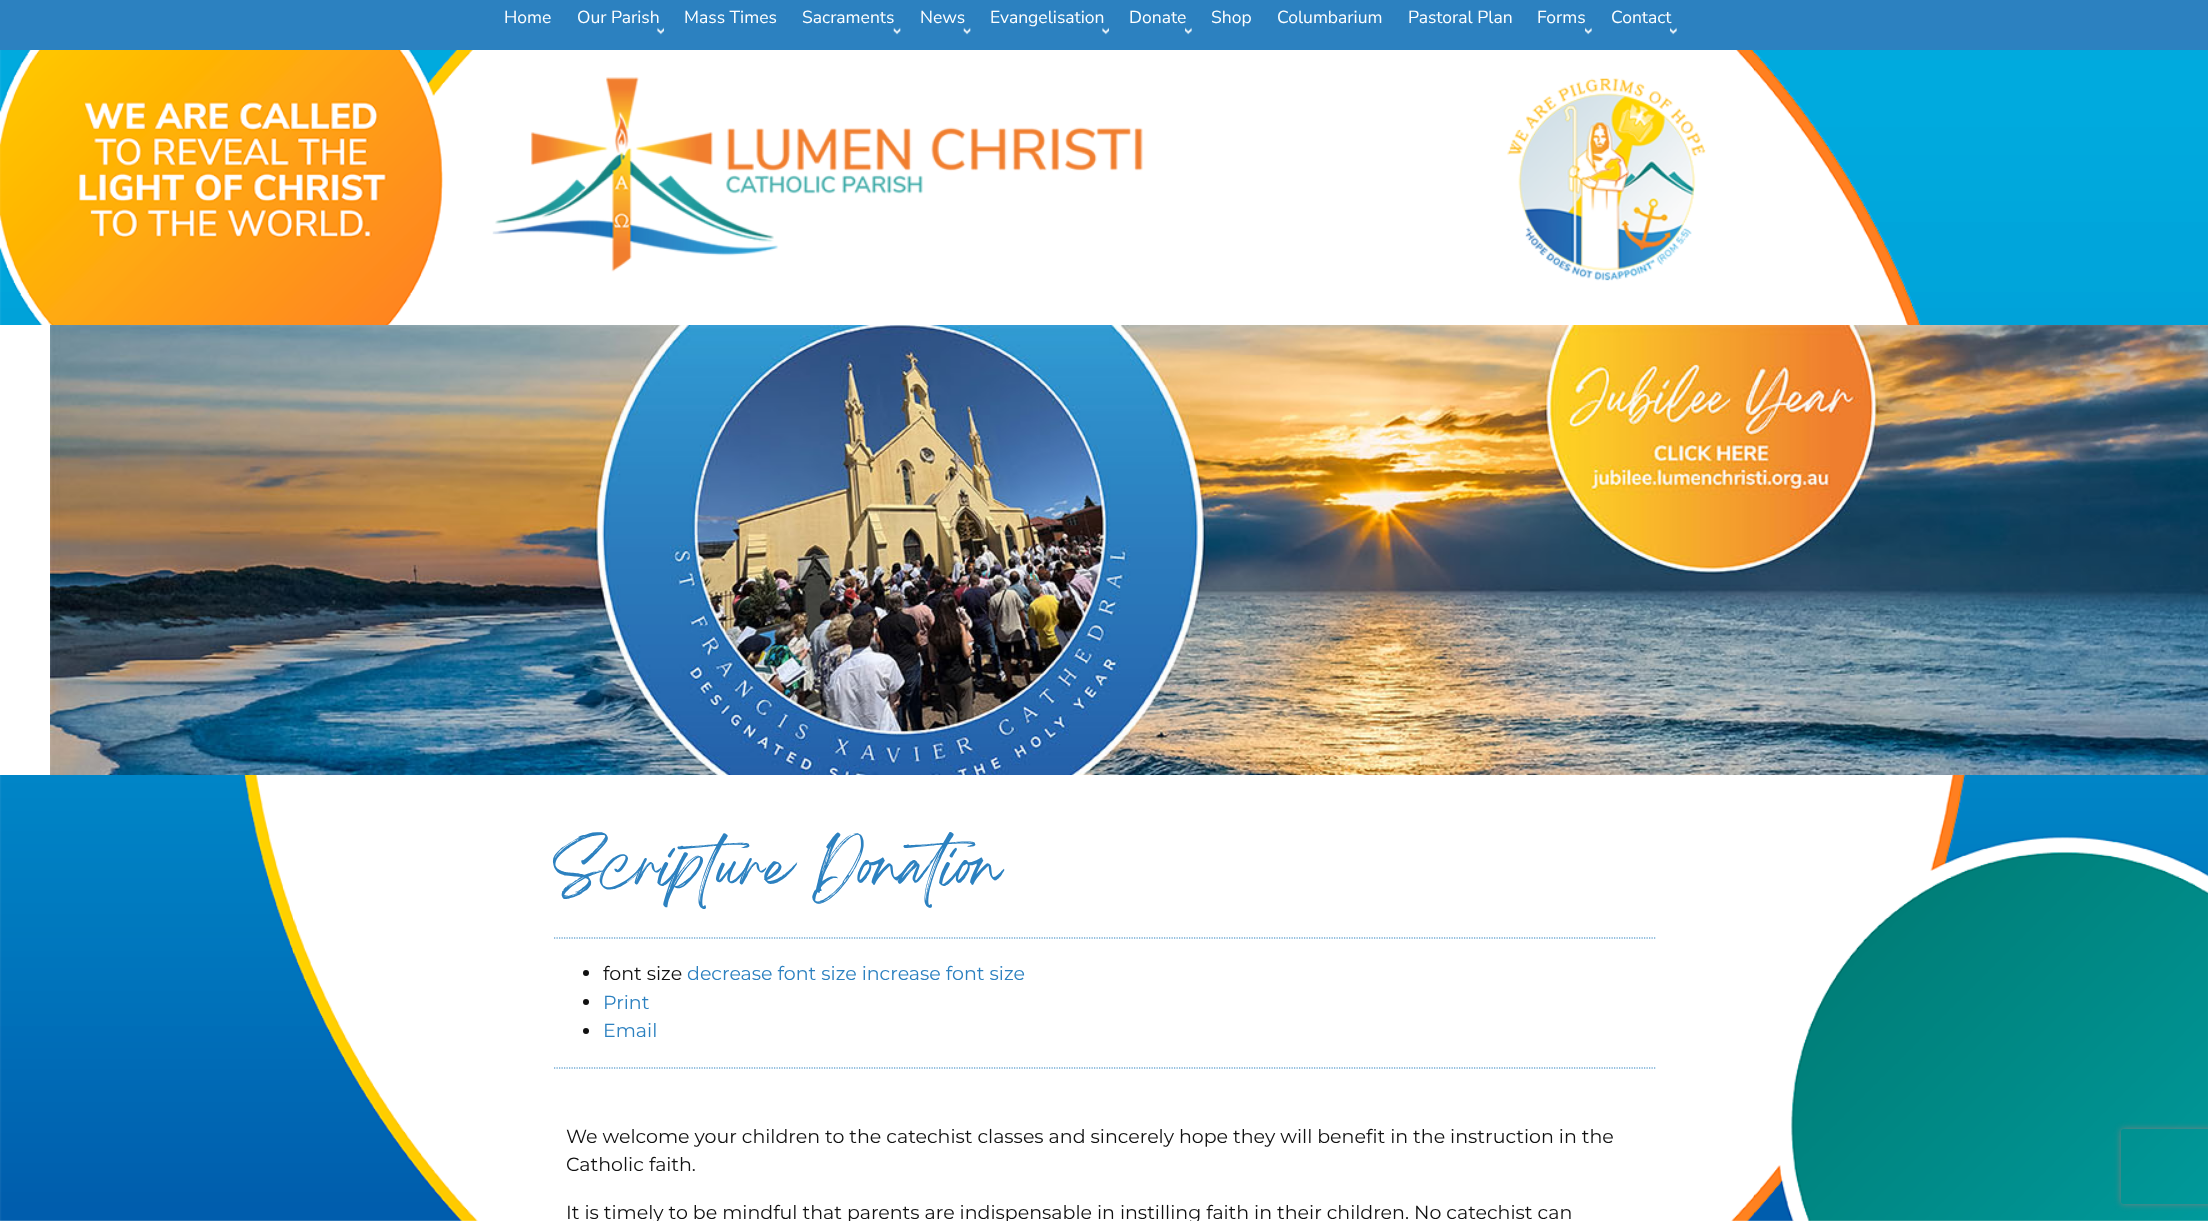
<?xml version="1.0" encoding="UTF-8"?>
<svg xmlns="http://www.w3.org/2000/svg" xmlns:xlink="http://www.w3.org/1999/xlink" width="2208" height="1221">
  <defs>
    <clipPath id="clip1"><path d="M 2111 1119 h 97 v 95 h -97 z m 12.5 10 h 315 c 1.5 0 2.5 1 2.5 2.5 v 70 c 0 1.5 -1 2.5 -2.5 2.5 h -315 c -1.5 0 -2.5 -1 -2.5 -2.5 v -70 c 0 -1.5 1 -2.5 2.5 -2.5 z" clip-rule="evenodd" /></clipPath>
  </defs>
  <rect width="100%" height="100%" fill="#ffffff" />
  <image x="0" y="50" width="2208" height="1171" xlink:href="image1.png" />
  <rect width="2208" height="50" fill="#2c81c0" />
  <image x="657" y="27" width="7" height="8" xlink:href="image2.png" />
  <image x="893" y="27" width="8" height="8" xlink:href="image3.png" />
  <image x="963" y="27" width="8" height="8" xlink:href="image3.png" />
  <image x="1102" y="27" width="7" height="8" xlink:href="image2.png" />
  <image x="1185" y="27" width="7" height="8" xlink:href="image4.png" />
  <image x="1585" y="27" width="7" height="8" xlink:href="image4.png" />
  <image x="1670" y="27" width="7" height="8" xlink:href="image4.png" />
  <image x="492" y="77" width="1214" height="204" xlink:href="image5.png" />
  <rect y="325" width="50" height="450" fill="#ffffff" />
  <image x="50" y="325" width="2158" height="450" xlink:href="image6.png" />
  <path d="M 554 938 h 1102" fill="none" stroke="#2c81c0" stroke-width="1.2" stroke-dasharray="1.25 1.25" />
  <path d="M 554 1068 h 1102" fill="none" stroke="#2c81c0" stroke-width="1.2" stroke-dasharray="1.25 1.25" />
  <circle cx="586" cy="973" r="3" fill="#111111" />
  <circle cx="586" cy="1002" r="3" fill="#111111" />
  <circle cx="586" cy="1031" r="3" fill="#111111" />
  <g clip-path="url(#clip1)">
    <rect x="2121" y="1129" width="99" height="75" rx="2.5" fill="#808080" filter="blur(3px)" />
  </g>
  <text x="504" y="23" style="font-family: Nunito Sans; font-size: 17.5px; fill: #ffffff">Home</text>
  <text x="577" y="23" style="font-family: Nunito Sans; font-size: 17.5px; fill: #ffffff">Our Parish</text>
  <text x="684" y="23" style="font-family: Nunito Sans; font-size: 17.5px; fill: #ffffff">Mass Times</text>
  <text x="802" y="23" style="font-family: Nunito Sans; font-size: 17.5px; fill: #ffffff">Sacraments</text>
  <text x="920" y="23" style="font-family: Nunito Sans; font-size: 17.5px; fill: #ffffff">News</text>
  <text x="990" y="23" style="font-family: Nunito Sans; font-size: 17.5px; fill: #ffffff">Evangelisation</text>
  <text x="1129" y="23" style="font-family: Nunito Sans; font-size: 17.5px; fill: #ffffff">Donate</text>
  <text x="1211" y="23" style="font-family: Nunito Sans; font-size: 17.5px; fill: #ffffff">Shop</text>
  <text x="1277" y="23" style="font-family: Nunito Sans; font-size: 17.5px; fill: #ffffff">Columbarium</text>
  <text x="1408" y="23" style="font-family: Nunito Sans; font-size: 17.5px; fill: #ffffff">Pastoral Plan</text>
  <text x="1537" y="23" style="font-family: Nunito Sans; font-size: 17.5px; fill: #ffffff">Forms</text>
  <text x="1611" y="23" style="font-family: Nunito Sans; font-size: 17.5px; fill: #ffffff">Contact</text>
  <text x="553" y="898" style="font-family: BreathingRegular; font-size: 51.25px; font-weight: 100; fill: #2c81c0">Scripture Donation</text>
  <text x="603" y="980" style="font-family: Montserrat; font-size: 19px; font-weight: 100; fill: #111111">font size</text>
  <text x="687" y="980" style="font-family: Montserrat; font-size: 19px; font-weight: 100; fill: #2c81c0">decrease font size increase font size</text>
  <text x="603" y="1009" style="font-family: Montserrat; font-size: 19px; font-weight: 100; fill: #2c81c0">Print</text>
  <text x="603" y="1037" style="font-family: Montserrat; font-size: 19px; font-weight: 100; fill: #2c81c0">Email</text>
  <text x="566" y="1143" style="font-family: Montserrat; font-size: 19px; font-weight: 100; fill: #111111">We welcome your children to the catechist classes and sincerely hope they will benefit in the instruction in the</text>
  <text x="566" y="1171" style="font-family: Montserrat; font-size: 19px; font-weight: 100; fill: #111111">Catholic faith.</text>
  <text x="566" y="1219" style="font-family: Montserrat; font-size: 19px; font-weight: 100; fill: #111111">It is timely to be mindful that parents are indispensable in instilling faith in their children. No catechist can</text>
</svg>
